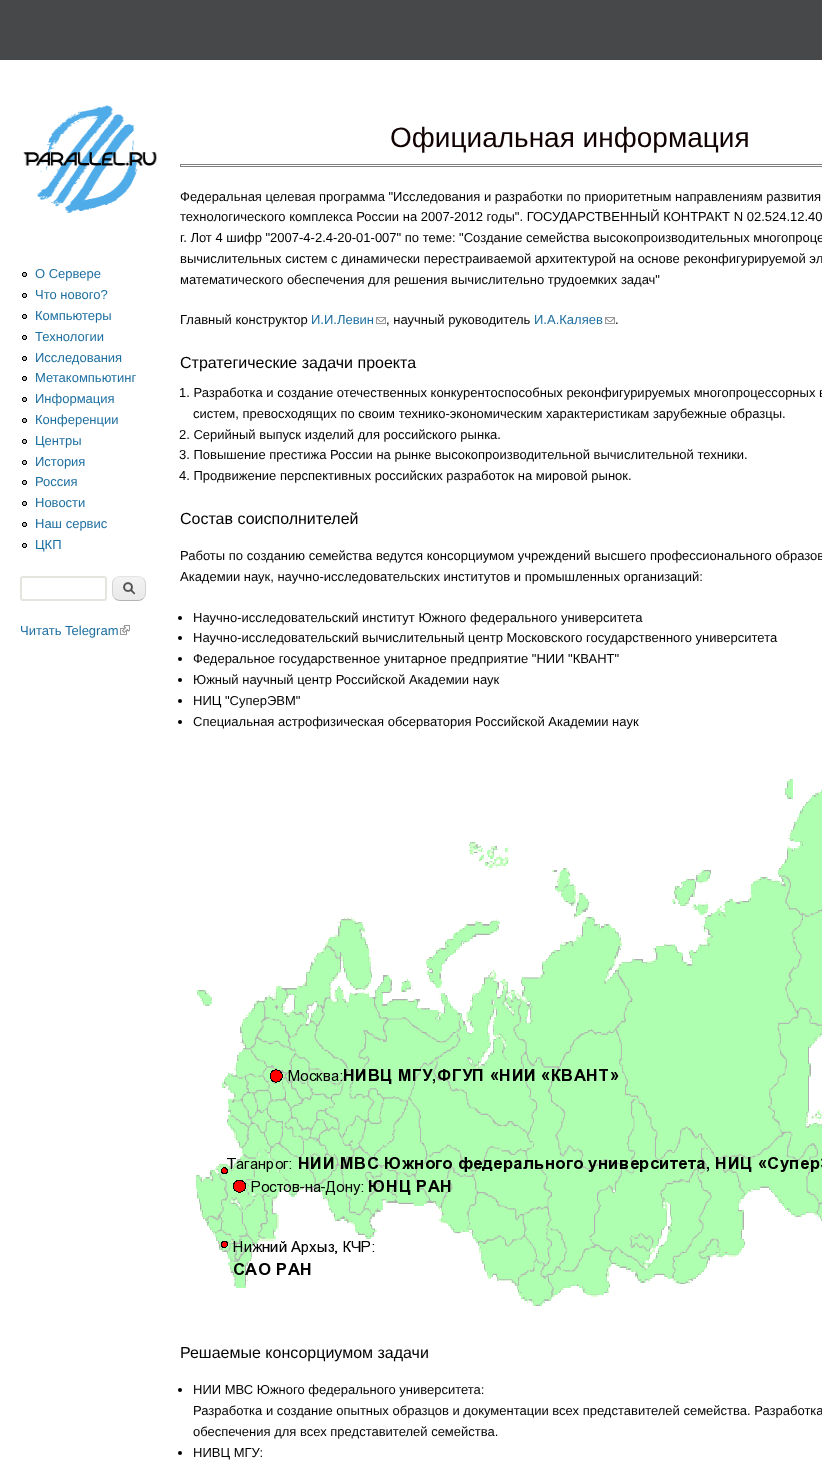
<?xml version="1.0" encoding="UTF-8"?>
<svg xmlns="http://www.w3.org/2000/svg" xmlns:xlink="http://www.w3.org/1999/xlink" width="822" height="1469">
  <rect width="100%" height="100%" fill="#464849" />
  <rect y="60" width="822" height="1409" fill="#ffffff" />
  <image x="23" y="105" width="134" height="108" xlink:href="image1.png" />
  <image x="22" y="272" width="5" height="5" xlink:href="image2.png" />
  <image x="22" y="293" width="5" height="5" xlink:href="image2.png" />
  <image x="22" y="314" width="5" height="5" xlink:href="image2.png" />
  <image x="22" y="335" width="5" height="5" xlink:href="image2.png" />
  <image x="22" y="356" width="5" height="5" xlink:href="image2.png" />
  <image x="22" y="376" width="5" height="5" xlink:href="image2.png" />
  <image x="22" y="397" width="5" height="5" xlink:href="image2.png" />
  <image x="22" y="418" width="5" height="5" xlink:href="image2.png" />
  <image x="22" y="439" width="5" height="5" xlink:href="image2.png" />
  <image x="22" y="460" width="5" height="5" xlink:href="image2.png" />
  <image x="22" y="480" width="5" height="5" xlink:href="image2.png" />
  <image x="22" y="501" width="5" height="5" xlink:href="image2.png" />
  <image x="22" y="522" width="5" height="5" xlink:href="image2.png" />
  <image x="22" y="543" width="5" height="5" xlink:href="image2.png" />
  <rect x="21" y="577" width="85" height="23" rx="2" fill="none" stroke="#e6e4de" stroke-width="2" />
  <image x="112" y="577" width="34" height="24" xlink:href="image3.png" />
  <path d="M 114.5 578.5 c 1.5 -1 3.5 -2 5.5 -2 h 18 c 2 0 4 1 5.5 2" fill="none" stroke="#e4e4e4" />
  <path d="M 143.5 578.5 c 2.5 3 2 6.5 2 10 c 0 3.5 0.5 7 -2 10" fill="none" stroke="#d2d2d2" />
  <path d="M 143.5 598.5 c -1.5 1 -3.5 2 -5.5 2 h -18 c -2 0 -4 -1 -5.5 -2" fill="none" stroke="#b4b4b4" />
  <path d="M 114.5 598.5 c -2.5 -3 -2 -6.5 -2 -10 c 0 -3.5 -0.5 -7 2 -10" fill="none" stroke="#d2d2d2" />
  <image x="120" y="625" width="10" height="10" xlink:href="image4.png" />
  <rect x="180.5" y="164.5" width="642" height="2" fill="none" stroke="#808080" />
  <image x="376" y="317" width="10" height="7" xlink:href="image5.png" />
  <image x="605" y="317" width="10" height="7" xlink:href="image5.png" />
  <circle cx="180" cy="618" r="2" fill="#000000" />
  <circle cx="180" cy="638" r="2" fill="#000000" />
  <circle cx="180" cy="659" r="2" fill="#000000" />
  <circle cx="180" cy="680" r="2" fill="#000000" />
  <circle cx="180" cy="701" r="2" fill="#000000" />
  <circle cx="180" cy="722" r="2" fill="#000000" />
  <image x="196" y="779" width="626" height="527" xlink:href="image6.png" />
  <circle cx="180" cy="1390" r="2" fill="#000000" />
  <circle cx="180" cy="1453" r="2" fill="#000000" />
  <text x="35" y="278" style="font-family: Liberation Sans; font-size: 13px; fill: #1c6ea0">О Сервере</text>
  <text x="35" y="299" style="font-family: Liberation Sans; font-size: 13px; fill: #1c6ea0">Что нового?</text>
  <text x="35" y="320" style="font-family: Liberation Sans; font-size: 13px; fill: #1c6ea0">Компьютеры</text>
  <text x="35" y="341" style="font-family: Liberation Sans; font-size: 13px; fill: #1c6ea0">Технологии</text>
  <text x="35" y="362" style="font-family: Liberation Sans; font-size: 13px; fill: #1c6ea0">Исследования</text>
  <text x="35" y="382" style="font-family: Liberation Sans; font-size: 13px; fill: #1c6ea0">Метакомпьютинг</text>
  <text x="35" y="403" style="font-family: Liberation Sans; font-size: 13px; fill: #1c6ea0">Информация</text>
  <text x="35" y="424" style="font-family: Liberation Sans; font-size: 13px; fill: #1c6ea0">Конференции</text>
  <text x="35" y="445" style="font-family: Liberation Sans; font-size: 13px; fill: #1c6ea0">Центры</text>
  <text x="35" y="466" style="font-family: Liberation Sans; font-size: 13px; fill: #1c6ea0">История</text>
  <text x="35" y="486" style="font-family: Liberation Sans; font-size: 13px; fill: #1c6ea0">Россия</text>
  <text x="35" y="507" style="font-family: Liberation Sans; font-size: 13px; fill: #1c6ea0">Новости</text>
  <text x="35" y="528" style="font-family: Liberation Sans; font-size: 13px; fill: #1c6ea0">Наш сервис</text>
  <text x="35" y="549" style="font-family: Liberation Sans; font-size: 13px; fill: #1c6ea0">ЦКП</text>
  <text x="20" y="635" style="font-family: Liberation Sans; font-size: 13px; fill: #1c6ea0">Читать Telegram</text>
  <text x="390" y="147" style="font-family: Liberation Sans; font-size: 28px; fill: #100001">Официальная информация</text>
  <text x="180" y="201" style="font-family: Liberation Sans; font-size: 13px; fill: #000000">Федеральная целевая программа "Исследования и разработки по приоритетным</text>
  <text x="675" y="201" style="font-family: Liberation Sans; font-size: 13px; fill: #000000">направлениям развития</text>
  <text x="180" y="221" style="font-family: Liberation Sans; font-size: 13px; fill: #000000">технологического комплекса России на 2007-2012 годы". ГОСУДАРСТВЕННЫЙ КОНТРАКТ N 02.524.12.40</text>
  <text x="180" y="242" style="font-family: Liberation Sans; font-size: 13px; fill: #000000">г. Лот 4 шифр "2007-4-2.4-20-01-007" по теме: "Создание семейства высокопроизводительных многопроце</text>
  <text x="180" y="263" style="font-family: Liberation Sans; font-size: 13px; fill: #000000">вычислительных систем с динамически перестраиваемой архитектурой на основе реконфигурируемой эл</text>
  <text x="180" y="284" style="font-family: Liberation Sans; font-size: 13px; fill: #000000">математического обеспечения для решения вычислительно трудоемких задач"</text>
  <text x="180" y="324" style="font-family: Liberation Sans; font-size: 13px; fill: #000000">Главный конструктор</text>
  <text x="311" y="324" style="font-family: Liberation Sans; font-size: 13px; fill: #1c6ea0">И.И.Левин</text>
  <text x="386" y="324" style="font-family: Liberation Sans; font-size: 13px; fill: #000000">, научный руководитель</text>
  <text x="534" y="324" style="font-family: Liberation Sans; font-size: 13px; fill: #1c6ea0">И.А.Каляев</text>
  <text x="615" y="324" style="font-family: Liberation Sans; font-size: 13px; fill: #000000">.</text>
  <text x="180" y="368" style="font-family: Liberation Sans; font-size: 16px; fill: #000000">Стратегические задачи проекта</text>
  <text x="179" y="397" style="font-family: Liberation Sans; font-size: 13px; fill: #000000">1. Разработка и создание отечественных конкурентоспособных реконфигурируемых многопроцессорных в</text>
  <text x="193" y="418" style="font-family: Liberation Sans; font-size: 13px; fill: #000000">систем, превосходящих по своим технико-экономическим характеристикам зарубежные образцы.</text>
  <text x="179" y="439" style="font-family: Liberation Sans; font-size: 13px; fill: #000000">2. Серийный выпуск изделий для российского рынка.</text>
  <text x="179" y="459" style="font-family: Liberation Sans; font-size: 13px; fill: #000000">3. Повышение престижа России на рынке высокопроизводительной вычислительной техники.</text>
  <text x="179" y="480" style="font-family: Liberation Sans; font-size: 13px; fill: #000000">4. Продвижение перспективных российских разработок на мировой рынок.</text>
  <text x="180" y="524" style="font-family: Liberation Sans; font-size: 16px; fill: #000000">Состав соисполнителей</text>
  <text x="180" y="560" style="font-family: Liberation Sans; font-size: 13px; fill: #000000">Работы по созданию семейства ведутся консорциумом учреждений высшего профессионального образов</text>
  <text x="180" y="581" style="font-family: Liberation Sans; font-size: 13px; fill: #000000">Академии наук, научно-исследовательских институтов и промышленных организаций:</text>
  <text x="193" y="622" style="font-family: Liberation Sans; font-size: 13px; fill: #000000">Научно-исследовательский институт Южного федерального университета</text>
  <text x="193" y="642" style="font-family: Liberation Sans; font-size: 13px; fill: #000000">Научно-исследовательский вычислительный центр Московского государственного университета</text>
  <text x="193" y="663" style="font-family: Liberation Sans; font-size: 13px; fill: #000000">Федеральное государственное унитарное предприятие "НИИ "КВАНТ"</text>
  <text x="193" y="684" style="font-family: Liberation Sans; font-size: 13px; fill: #000000">Южный научный центр Российской Академии наук</text>
  <text x="193" y="705" style="font-family: Liberation Sans; font-size: 13px; fill: #000000">НИЦ "СуперЭВМ"</text>
  <text x="193" y="726" style="font-family: Liberation Sans; font-size: 13px; fill: #000000">Специальная астрофизическая обсерватория Российской Академии наук</text>
  <text x="180" y="1358" style="font-family: Liberation Sans; font-size: 16px; fill: #000000">Решаемые консорциумом задачи</text>
  <text x="193" y="1394" style="font-family: Liberation Sans; font-size: 13px; fill: #000000">НИИ МВС Южного федерального университета:</text>
  <text x="193" y="1415" style="font-family: Liberation Sans; font-size: 13px; fill: #000000">Разработка и создание опытных образцов и документации всех представителей семейства. Разработка</text>
  <text x="193" y="1436" style="font-family: Liberation Sans; font-size: 13px; fill: #000000">обеспечения для всех представителей семейства.</text>
  <text x="193" y="1457" style="font-family: Liberation Sans; font-size: 13px; fill: #000000">НИВЦ МГУ:</text>
</svg>
